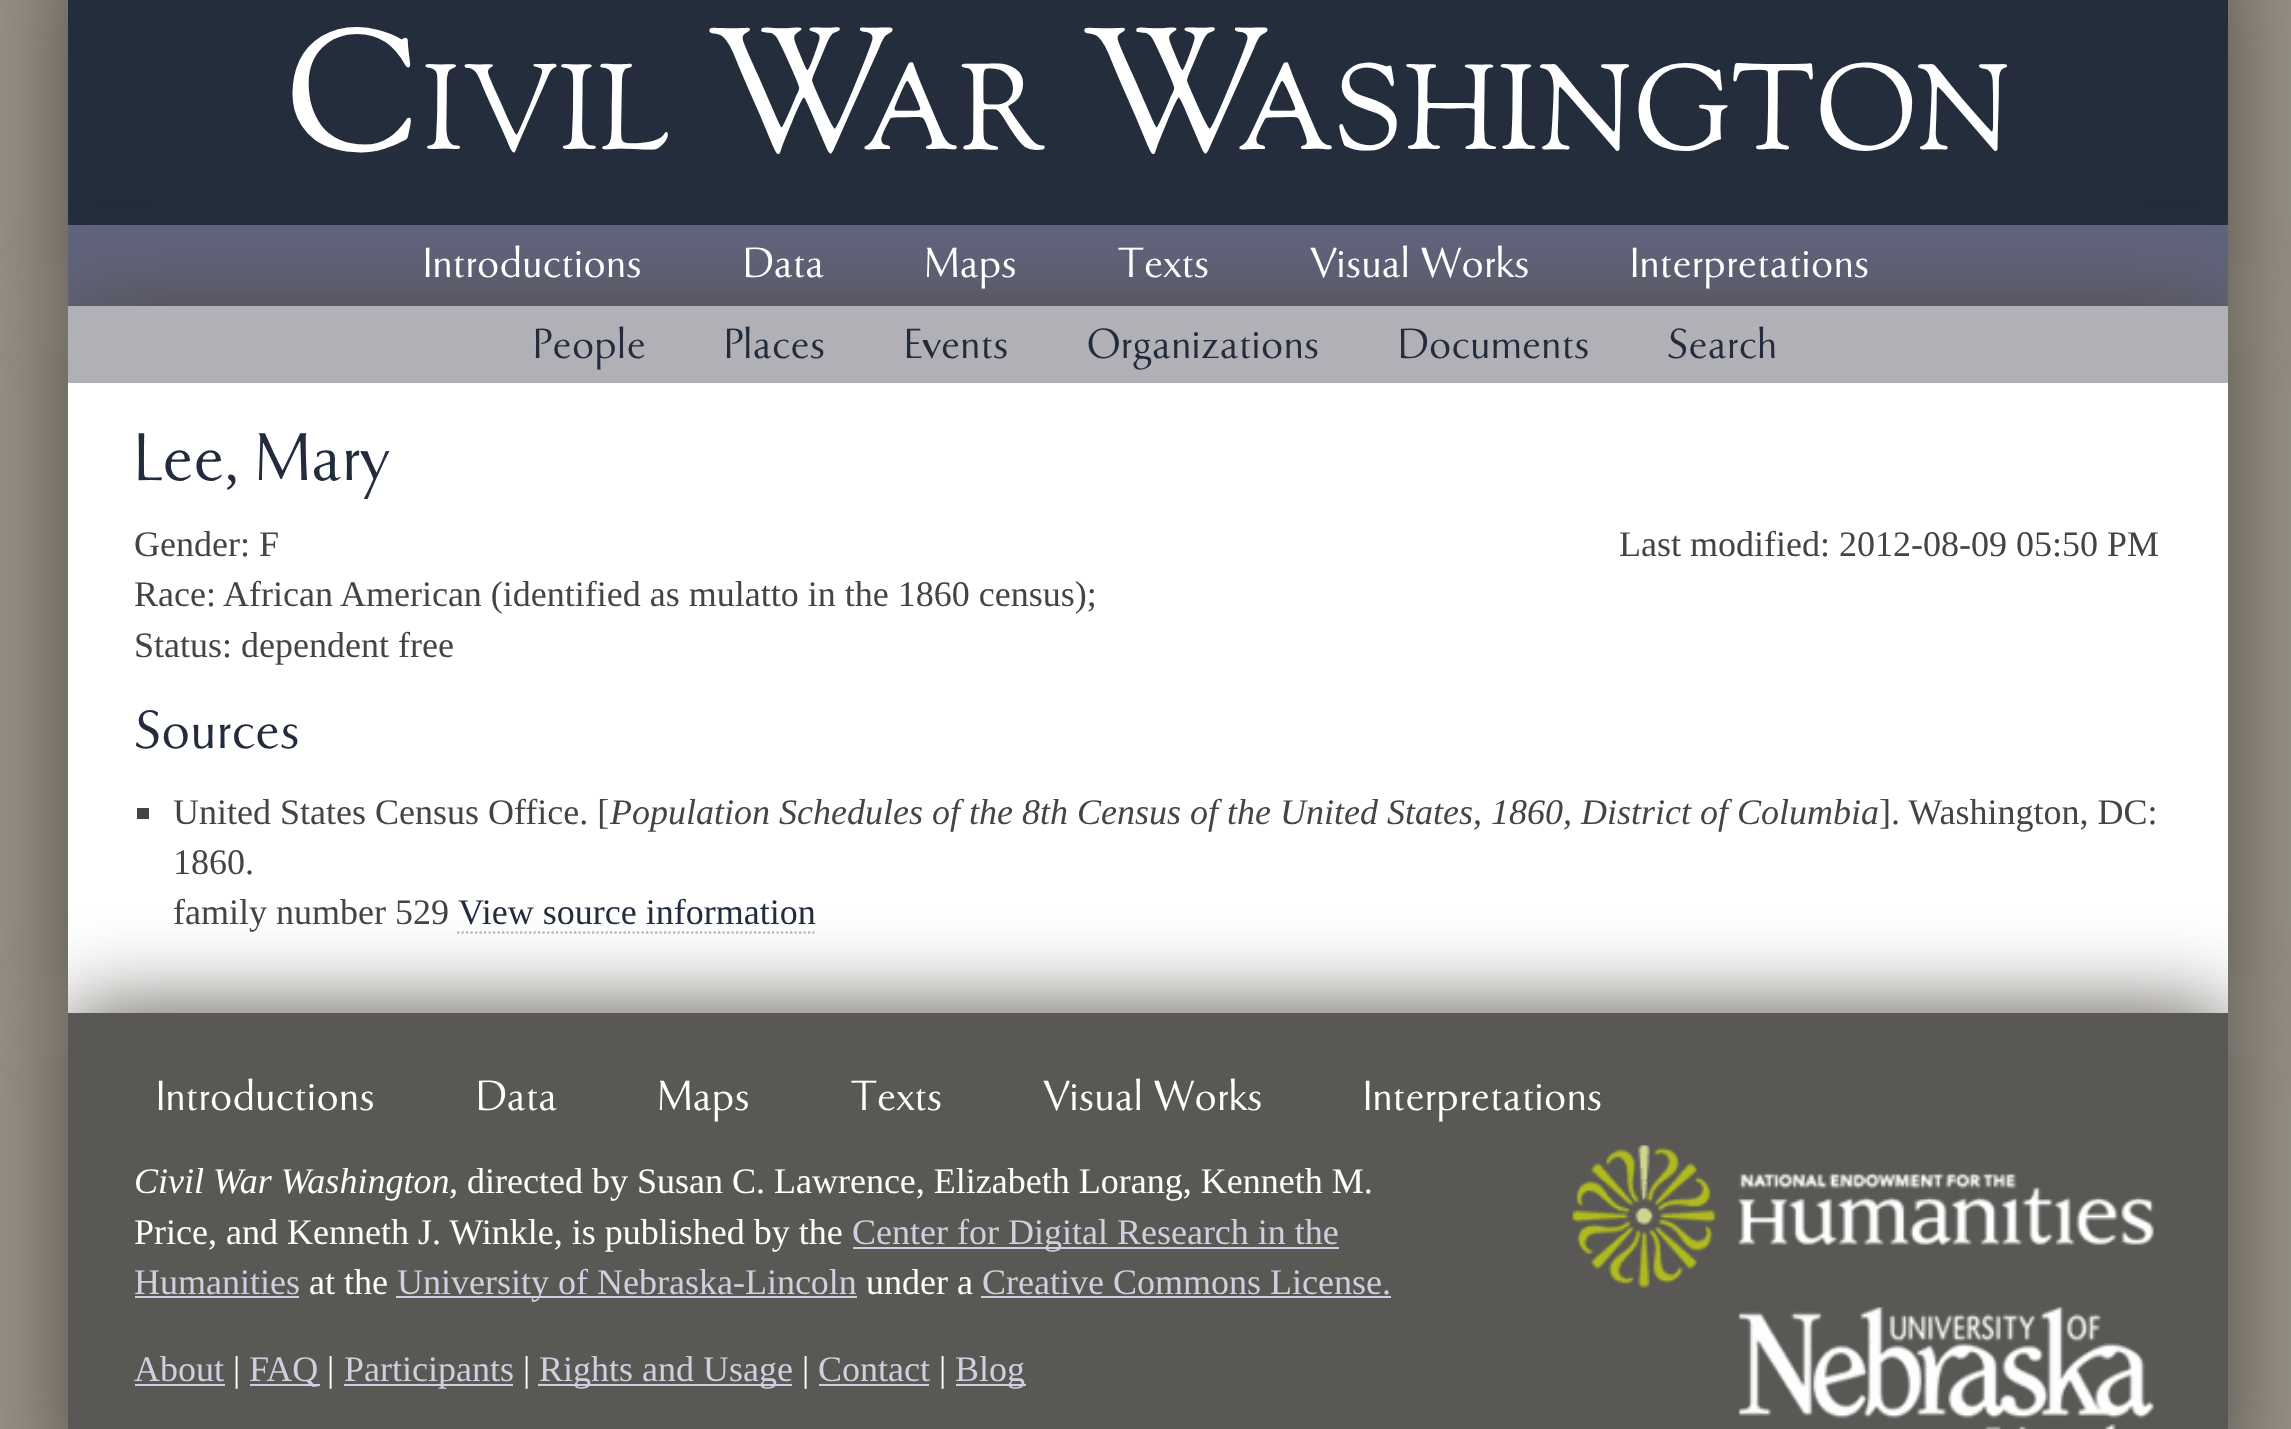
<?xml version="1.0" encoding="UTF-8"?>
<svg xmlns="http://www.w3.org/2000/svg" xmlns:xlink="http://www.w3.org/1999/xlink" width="2291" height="1429">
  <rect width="100%" height="100%" fill="#969086" />
  <rect x="68" y="-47" width="2160" height="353" fill="#524d45" filter="blur(45px)" />
  <rect x="68" width="2160" height="225" fill="#232d3c" />
  <rect x="68" y="225" width="2160" height="81" fill="#61647e" />
  <rect x="68" y="306" width="2160" height="707" fill="#524d45" filter="blur(45px)" />
  <rect x="68" y="383" width="2160" height="630" fill="#ffffff" />
  <rect x="68" y="306" width="2160" height="77" fill="#b2b0b7" />
  <rect x="137" y="808" width="12" height="11" fill="#444444" />
  <path d="M 457 932.5 h 357.5" fill="none" stroke="#b2b0b7" stroke-width="2.2" stroke-dasharray="2.25 2.25" />
  <rect x="68" y="1013" width="2160" height="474" fill="#524d45" filter="blur(45px)" />
  <rect x="68" y="1013" width="2160" height="416" fill="#595855" />
  <rect x="853" y="1247" width="486" height="2" fill="#ced0df" />
  <rect x="135" y="1296" width="164" height="2" fill="#ced0df" />
  <rect x="396" y="1296" width="461" height="2" fill="#ced0df" />
  <rect x="981" y="1296" width="410" height="2" fill="#ced0df" />
  <rect x="135" y="1384" width="90" height="2" fill="#ced0df" />
  <rect x="250" y="1384" width="70" height="2" fill="#ced0df" />
  <rect x="344" y="1384" width="169" height="2" fill="#ced0df" />
  <rect x="538" y="1384" width="254" height="2" fill="#ced0df" />
  <rect x="819" y="1384" width="110" height="2" fill="#ced0df" />
  <rect x="956" y="1384" width="70" height="2" fill="#ced0df" />
  <image x="1572" y="1145" width="582" height="143" xlink:href="image1.png" />
  <image x="1738" y="1307" width="416" height="122" xlink:href="image2.png" />
  <text x="285" y="149" style="font-family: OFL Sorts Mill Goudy; font-size: 171px; font-weight: 500; fill: #ffffff">C</text>
  <text x="423" y="149" style="font-family: OFL Sorts Mill Goudy; font-size: 119.75px; font-weight: 500; fill: #ffffff">IVIL</text>
  <text x="706" y="149" style="font-family: OFL Sorts Mill Goudy; font-size: 171px; font-weight: 500; fill: #ffffff">W</text>
  <text x="862" y="149" style="font-family: OFL Sorts Mill Goudy; font-size: 119.75px; font-weight: 500; fill: #ffffff">AR</text>
  <text x="1081" y="149" style="font-family: OFL Sorts Mill Goudy; font-size: 171px; font-weight: 500; fill: #ffffff">W</text>
  <text x="1237" y="149" style="font-family: OFL Sorts Mill Goudy; font-size: 119.75px; font-weight: 500; fill: #ffffff">ASHINGTON</text>
  <text x="423" y="277" style="font-family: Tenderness; font-size: 45px; fill: #ffffff">Introductions</text>
  <text x="743" y="277" style="font-family: Tenderness; font-size: 45px; fill: #ffffff">Data</text>
  <text x="925" y="277" style="font-family: Tenderness; font-size: 45px; fill: #ffffff">Maps</text>
  <text x="1118" y="277" style="font-family: Tenderness; font-size: 45px; fill: #ffffff">Texts</text>
  <text x="1310" y="277" style="font-family: Tenderness; font-size: 45px; fill: #ffffff">Visual Works</text>
  <text x="1630" y="277" style="font-family: Tenderness; font-size: 45px; fill: #ffffff">Interpretations</text>
  <text x="533" y="358" style="font-family: Tenderness; font-size: 45px; fill: #222c3c">People</text>
  <text x="724" y="358" style="font-family: Tenderness; font-size: 45px; fill: #222c3c">Places</text>
  <text x="904" y="358" style="font-family: Tenderness; font-size: 45px; fill: #222c3c">Events</text>
  <text x="1087" y="358" style="font-family: Tenderness; font-size: 45px; fill: #222c3c">Organizations</text>
  <text x="1398" y="358" style="font-family: Tenderness; font-size: 45px; fill: #222c3c">Documents</text>
  <text x="1667" y="358" style="font-family: Tenderness; font-size: 45px; fill: #222c3c">Search</text>
  <text x="134" y="480" style="font-family: Tenderness; font-size: 72px; fill: #222c3c">Lee, Mary</text>
  <text x="134" y="556" style="font-family: Liberation Serif; font-size: 36px; fill: #444444">Gender: F</text>
  <text x="134" y="606" style="font-family: Liberation Serif; font-size: 36px; fill: #444444">Race:</text>
  <text x="223" y="606" style="font-family: Liberation Serif; font-size: 36px; fill: #444444">African American (identified as mulatto in the 1860 census);</text>
  <text x="134" y="657" style="font-family: Liberation Serif; font-size: 36px; fill: #444444">Status: dependent free</text>
  <text x="1619" y="556" style="font-family: Liberation Serif; font-size: 36px; fill: #444444">Last modified: 2012-08-09 05:50 PM</text>
  <text x="134" y="748" style="font-family: Tenderness; font-size: 57.5px; fill: #222c3c">Sources</text>
  <text x="173" y="824" style="font-family: Liberation Serif; font-size: 36px; fill: #444444">United States Census Office. [</text>
  <text x="610" y="824" style="font-family: Liberation Serif; font-size: 36px; font-style: italic; fill: #444444">Population Schedules of the 8th Census of the United States, 1860, District of Columbia</text>
  <text x="1879" y="824" style="font-family: Liberation Serif; font-size: 36px; fill: #444444">]. Washington, DC:</text>
  <text x="173" y="874" style="font-family: Liberation Serif; font-size: 36px; fill: #444444">1860.</text>
  <text x="173" y="924" style="font-family: Liberation Serif; font-size: 36px; fill: #444444">family number 529</text>
  <text x="458" y="924" style="font-family: Liberation Serif; font-size: 36px; fill: #222c3c">View source information</text>
  <text x="156" y="1110" style="font-family: Tenderness; font-size: 45px; fill: #ffffff">Introductions</text>
  <text x="476" y="1110" style="font-family: Tenderness; font-size: 45px; fill: #ffffff">Data</text>
  <text x="658" y="1110" style="font-family: Tenderness; font-size: 45px; fill: #ffffff">Maps</text>
  <text x="851" y="1110" style="font-family: Tenderness; font-size: 45px; fill: #ffffff">Texts</text>
  <text x="1043" y="1110" style="font-family: Tenderness; font-size: 45px; fill: #ffffff">Visual Works</text>
  <text x="1363" y="1110" style="font-family: Tenderness; font-size: 45px; fill: #ffffff">Interpretations</text>
  <text x="134" y="1193" style="font-family: Liberation Serif; font-size: 36px; font-style: italic; fill: #ffffff">Civil War Washington</text>
  <text x="449" y="1193" style="font-family: Liberation Serif; font-size: 36px; fill: #ffffff">, directed by Susan C. Lawrence, Elizabeth Lorang, Kenneth M.</text>
  <text x="134" y="1244" style="font-family: Liberation Serif; font-size: 36px; fill: #ffffff">Price, and Kenneth J. Winkle, is published by the</text>
  <text x="852" y="1244" style="font-family: Liberation Serif; font-size: 36px; fill: #ced0df">Center for Digital Research in the</text>
  <text x="134" y="1294" style="font-family: Liberation Serif; font-size: 36px; fill: #ced0df">Humanities</text>
  <text x="309" y="1294" style="font-family: Liberation Serif; font-size: 36px; fill: #ffffff">at the</text>
  <text x="397" y="1294" style="font-family: Liberation Serif; font-size: 36px; fill: #ced0df">University of Nebraska-Lincoln</text>
  <text x="866" y="1294" style="font-family: Liberation Serif; font-size: 36px; fill: #ffffff">under a</text>
  <text x="982" y="1294" style="font-family: Liberation Serif; font-size: 36px; fill: #ced0df">Creative Commons License.</text>
  <text x="134" y="1381" style="font-family: Liberation Serif; font-size: 36px; fill: #ced0df">About</text>
  <text x="233" y="1381" style="font-family: Liberation Serif; font-size: 36px; fill: #ffffff">|</text>
  <text x="249" y="1381" style="font-family: Liberation Serif; font-size: 36px; fill: #ced0df">FAQ</text>
  <text x="327" y="1381" style="font-family: Liberation Serif; font-size: 36px; fill: #ffffff">|</text>
  <text x="344" y="1381" style="font-family: Liberation Serif; font-size: 36px; fill: #ced0df">Participants</text>
  <text x="523" y="1381" style="font-family: Liberation Serif; font-size: 36px; fill: #ffffff">|</text>
  <text x="539" y="1381" style="font-family: Liberation Serif; font-size: 36px; fill: #ced0df">Rights and Usage</text>
  <text x="802" y="1381" style="font-family: Liberation Serif; font-size: 36px; fill: #ffffff">|</text>
  <text x="818" y="1381" style="font-family: Liberation Serif; font-size: 36px; fill: #ced0df">Contact</text>
  <text x="939" y="1381" style="font-family: Liberation Serif; font-size: 36px; fill: #ffffff">|</text>
  <text x="955" y="1381" style="font-family: Liberation Serif; font-size: 36px; fill: #ced0df">Blog</text>
</svg>
